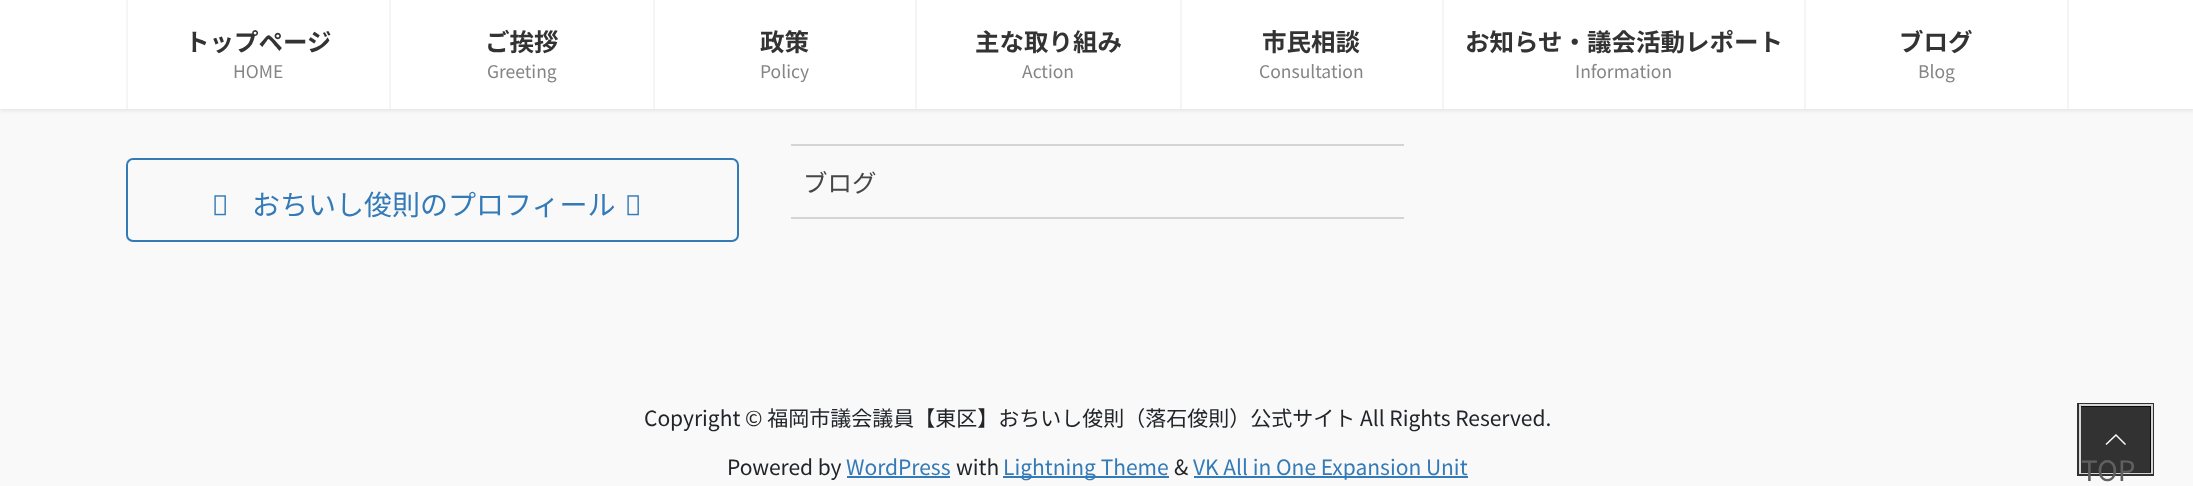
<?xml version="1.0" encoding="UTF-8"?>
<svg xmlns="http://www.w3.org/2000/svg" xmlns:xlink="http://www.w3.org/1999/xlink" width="2193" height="486">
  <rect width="100%" height="100%" fill="#f9f9f9" />
  <rect y="2" width="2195" height="108" fill="#000000" fill-opacity="0.1" filter="blur(2.5px)" />
  <rect width="2193" height="109" fill="#ffffff" />
  <rect x="126" width="2" height="109" fill="#f5f5f5" />
  <rect x="389" width="2" height="109" fill="#f5f5f5" />
  <rect x="653" width="2" height="109" fill="#f5f5f5" />
  <rect x="915" width="2" height="109" fill="#f5f5f5" />
  <rect x="1180" width="2" height="109" fill="#f5f5f5" />
  <rect x="1442" width="2" height="109" fill="#f5f5f5" />
  <rect x="2067" width="2" height="109" fill="#f5f5f5" />
  <rect x="1804" width="2" height="109" fill="#f5f5f5" />
  <rect x="791" y="144" width="613" height="2" fill="#d4d4d4" />
  <rect x="791" y="217" width="613" height="2" fill="#d4d4d4" />
  <rect x="127" y="159" width="611" height="82" rx="6" fill="none" stroke="#337ab7" stroke-width="2" />
  <image x="214" y="195" width="12" height="21" xlink:href="image1.png" />
  <image x="627" y="195" width="12" height="21" xlink:href="image1.png" />
  <rect x="847" y="476" width="103" height="2" fill="#337ab7" />
  <rect x="1003" y="476" width="166" height="2" fill="#337ab7" />
  <rect x="1194" y="476" width="274" height="2" fill="#337ab7" />
  <rect x="2079" y="405" width="73" height="69" fill="none" stroke="#323232" stroke-width="4" />
  <rect x="2080" y="405" width="72" height="68" fill="none" stroke="#d6d6d6" stroke-width="2" />
  <rect x="2081" y="406" width="70" height="67" fill="#000000" fill-opacity="0.8" />
  <path d="M 2126 444 l -1 1 l -9 -9 l -9.5 9 l -1 -1 l 10.5 -10 z" fill="#ffffff" />
  <text x="185" y="51" style="font-family: Noto Sans JP; font-size: 24.5px; font-weight: bold; fill: #333333">トップページ</text>
  <text x="233" y="78" style="font-family: Noto Sans JP; font-size: 17.5px; fill: #858585">HOME</text>
  <text x="485" y="51" style="font-family: Noto Sans JP; font-size: 24.5px; font-weight: bold; fill: #333333">ご挨拶</text>
  <text x="487" y="78" style="font-family: Noto Sans JP; font-size: 17.5px; fill: #858585">Greeting</text>
  <text x="760" y="51" style="font-family: Noto Sans JP; font-size: 24.5px; font-weight: bold; fill: #333333">政策</text>
  <text x="760" y="78" style="font-family: Noto Sans JP; font-size: 17.5px; fill: #858585">Policy</text>
  <text x="975" y="51" style="font-family: Noto Sans JP; font-size: 24.5px; font-weight: bold; fill: #333333">主な取り組み</text>
  <text x="1022" y="78" style="font-family: Noto Sans JP; font-size: 17.5px; fill: #858585">Action</text>
  <text x="1262" y="51" style="font-family: Noto Sans JP; font-size: 24.5px; font-weight: bold; fill: #333333">市民相談</text>
  <text x="1259" y="78" style="font-family: Noto Sans JP; font-size: 17.5px; fill: #858585">Consultation</text>
  <text x="1465" y="51" style="font-family: Noto Sans JP; font-size: 24.5px; font-weight: bold; fill: #333333">お知らせ・議会活動レポート</text>
  <text x="1575" y="78" style="font-family: Noto Sans JP; font-size: 17.5px; fill: #858585">Information</text>
  <text x="1899" y="51" style="font-family: Noto Sans JP; font-size: 24.5px; font-weight: bold; fill: #333333">ブログ</text>
  <text x="1918" y="78" style="font-family: Noto Sans JP; font-size: 17.5px; fill: #858585">Blog</text>
  <text x="803" y="192" style="font-family: Noto Sans JP; font-size: 24.5px; fill: #464646">ブログ</text>
  <text x="252" y="215" style="font-family: Noto Sans JP; font-size: 28px; fill: #337ab7">おちいし俊則のプロフィール</text>
  <text x="644" y="426" style="font-family: Noto Sans JP; font-size: 21px; fill: #212529">Copyright © 福岡市議会議員【東区】おちいし俊則（落石俊則）公式サイト All Rights Reserved.</text>
  <text x="727" y="475" style="font-family: Noto Sans JP; font-size: 21px; fill: #212529">Powered by</text>
  <text x="846" y="475" style="font-family: Noto Sans JP; font-size: 21px; fill: #337ab7">WordPress</text>
  <text x="956" y="475" style="font-family: Noto Sans JP; font-size: 21px; fill: #212529">with</text>
  <text x="1003" y="475" style="font-family: Noto Sans JP; font-size: 21px; fill: #337ab7">Lightning Theme</text>
  <text x="1174" y="475" style="font-family: Noto Sans JP; font-size: 21px; fill: #212529">&amp;</text>
  <text x="1193" y="475" style="font-family: Noto Sans JP; font-size: 21px; fill: #337ab7">VK All in One Expansion Unit</text>
  <text x="2081" y="481" style="font-family: Noto Sans JP; font-size: 28px; fill: #606060">TOP</text>
</svg>
